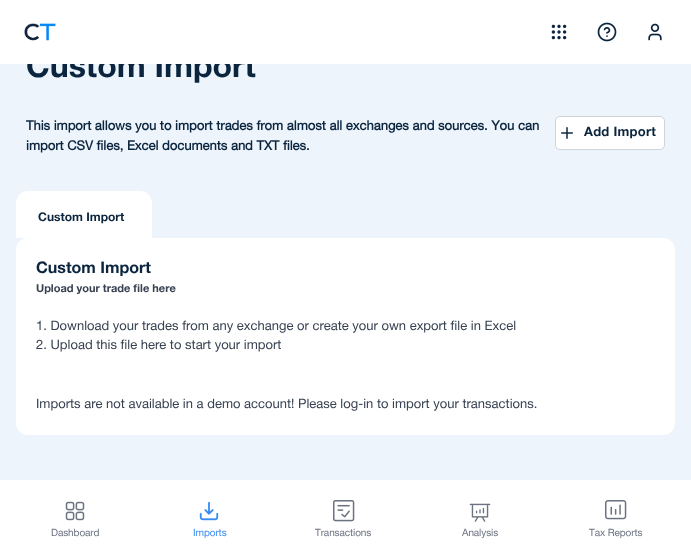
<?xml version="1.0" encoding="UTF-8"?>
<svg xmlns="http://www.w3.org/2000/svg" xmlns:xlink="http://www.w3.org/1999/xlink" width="691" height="560">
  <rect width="100%" height="100%" fill="#edf4fb" />
  <rect x="555.5" y="116.5" width="109" height="33" rx="4.5" fill="#ffffff" stroke="#cfd4da" />
  <image x="561" y="127" width="12" height="12" xlink:href="image1.png" />
  <path d="M 28 191 h 112 c 6.5 0 12 5.5 12 12 v 35 h -136 v -35 c 0 -6.5 5.5 -12 12 -12 z" fill="#ffffff" />
  <rect x="16" y="238" width="659" height="197" rx="12" fill="#ffffff" />
  <rect y="480" width="691" height="80" fill="#ffffff" />
  <image x="65" y="501" width="20" height="20" xlink:href="image6.png" />
  <image x="199" y="501" width="20" height="20" xlink:href="image7.png" />
  <image x="333" y="500" width="22" height="22" xlink:href="image8.png" />
  <image x="469" y="503" width="22" height="19" xlink:href="image9.png" />
  <image x="605" y="500" width="22" height="20" xlink:href="image10.png" />
  <text x="26" y="77" style="font-family: Helvetica Neue; font-size: 32px; font-weight: bold; fill: #0b253e">Custom Import</text>
  <text x="26" y="130" style="font-family: 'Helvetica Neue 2'; font-size: 13px; font-weight: bold; fill: #0b253e">This import allows you to import trades from almost all exchanges and sources. You can</text>
  <text x="26" y="150" style="font-family: 'Helvetica Neue 2'; font-size: 13px; font-weight: bold; fill: #0b253e">import CSV files, Excel documents and TXT files.</text>
  <text x="584" y="136" style="font-family: Helvetica Neue; font-size: 13px; font-weight: bold; letter-spacing: 0.25px; fill: #0b253e">Add Import</text>
  <text x="38" y="221" style="font-family: Helvetica Neue; font-size: 12px; font-weight: bold; fill: #0b253e">Custom Import</text>
  <text x="36" y="273" style="font-family: Helvetica Neue; font-size: 16px; font-weight: bold; fill: #0b253e">Custom Import</text>
  <text x="36" y="292" style="font-family: Helvetica Neue; font-size: 11px; font-weight: bold; fill: #374151">Upload your trade file here</text>
  <text x="36" y="330" style="font-family: Helvetica Neue; font-size: 13px; fill: #374151">1. Download your trades from any exchange or create your own export file in Excel</text>
  <text x="36" y="349" style="font-family: Helvetica Neue; font-size: 13px; fill: #374151">2. Upload this file here to start your import</text>
  <text x="36" y="408" style="font-family: Helvetica Neue; font-size: 13px; fill: #374151">Imports are not available in a demo account! Please log-in to import your transactions.</text>
  <rect width="691" height="64" fill="#ffffff" />
  <image x="24" y="23" width="32" height="18" xlink:href="image2.png" />
  <image x="551" y="24" width="16" height="16" xlink:href="image3.png" />
  <image x="597" y="22" width="20" height="20" xlink:href="image4.png" />
  <image x="648" y="23" width="14" height="18" xlink:href="image5.png" />
  <text x="51" y="536" style="font-family: Helvetica Neue; font-size: 10px; letter-spacing: -0.1px; fill: #6b7280">Dashboard</text>
  <text x="193" y="536" style="font-family: Helvetica Neue; font-size: 10px; letter-spacing: -0.1px; fill: #388bf3">Imports</text>
  <text x="315" y="536" style="font-family: Helvetica Neue; font-size: 10px; letter-spacing: -0.1px; fill: #6b7280">Transactions</text>
  <text x="462" y="536" style="font-family: Helvetica Neue; font-size: 10px; letter-spacing: -0.1px; fill: #6b7280">Analysis</text>
  <text x="589" y="536" style="font-family: Helvetica Neue; font-size: 10px; letter-spacing: -0.1px; fill: #6b7280">Tax Reports</text>
</svg>
